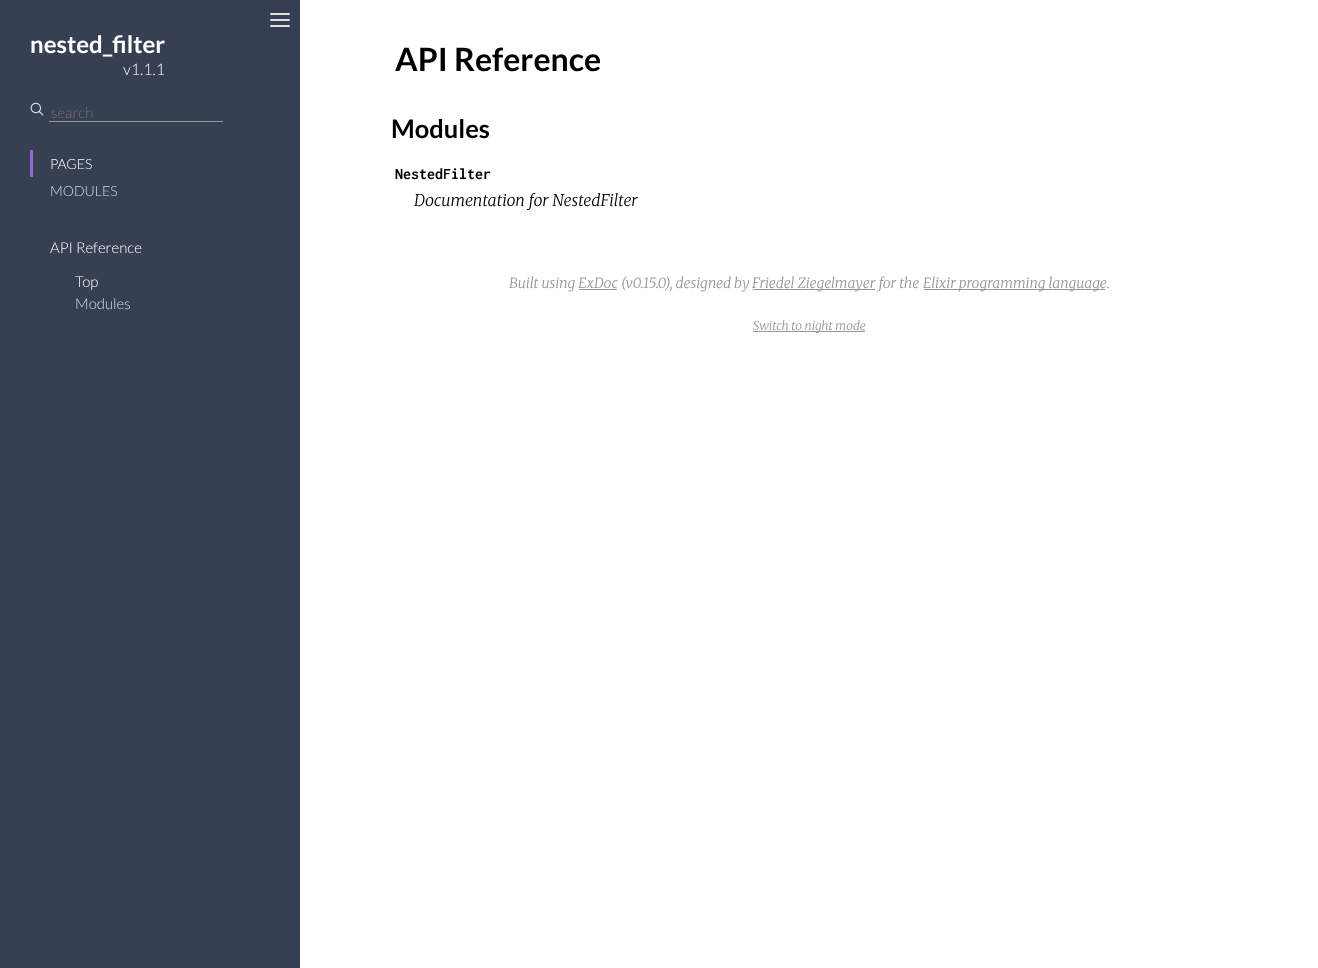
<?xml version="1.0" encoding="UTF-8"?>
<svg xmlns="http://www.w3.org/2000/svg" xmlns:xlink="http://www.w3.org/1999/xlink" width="1318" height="968">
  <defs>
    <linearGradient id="g1" gradientUnits="userSpaceOnUse" x1="150" y1="224" x2="150" y2="244"><stop offset="0" stop-color="#373f52" /><stop offset="1" stop-color="#373f52" stop-opacity="0" /></linearGradient>
  </defs>
  <rect width="100%" height="100%" fill="#ffffff" />
  <rect width="300" height="968" fill="#373f52" />
  <image x="270" y="13" width="20" height="14" xlink:href="image1.png" />
  <image x="30" y="102" width="14" height="14" xlink:href="image2.png" />
  <rect x="49" y="121" width="174" height="1" fill="#959595" />
  <rect x="30" y="150" width="3" height="27" fill="#9768d1" />
  <rect x="578" y="289" width="40" height="1" fill="#959595" />
  <rect x="752" y="289" width="124" height="1" fill="#959595" />
  <rect x="875" y="289" width="1" height="1" fill="#ffffff" />
  <rect x="752" y="289" width="1" height="1" fill="#ffffff" />
  <rect x="923" y="289" width="183" height="1" fill="#959595" />
  <rect x="1105" y="289" width="1" height="1" fill="#ffffff" />
  <rect x="923" y="289" width="1" height="1" fill="#ffffff" />
  <rect x="753" y="331" width="112" height="1" fill="#959595" />
  <text x="30" y="53" style="font-family: Lato; font-size: 24px; font-weight: bold; fill: #ffffff">nested_filter</text>
  <text x="123" y="75" style="font-family: Lato; font-size: 16px; font-weight: 300; fill: #ffffff">v1.1.1</text>
  <text x="51" y="118" style="font-family: Lato; font-size: 15px; font-weight: 300; fill: #757575">search</text>
  <text x="50" y="169" style="font-family: Lato; font-size: 14px; font-weight: 300; fill: #ffffff">PAGES</text>
  <text x="50" y="196" style="font-family: Lato; font-size: 14px; font-weight: 300; fill: #d5dae6">MODULES</text>
  <text x="50" y="253" style="font-family: Lato; font-size: 15px; font-weight: 300; fill: #ffffff">API Reference</text>
  <text x="75" y="287" style="font-family: Lato; font-size: 15px; font-weight: 300; fill: #ffffff">Top</text>
  <text x="75" y="309" style="font-family: Lato; font-size: 15px; font-weight: 300; fill: #d5dae6">Modules</text>
  <rect x="54" y="242" width="44" height="2" fill="url(#g1)" />
  <text x="395" y="71" style="font-family: Lato; font-size: 32px; font-weight: bold; fill: #000000">API Reference</text>
  <text x="391" y="138" style="font-family: Lato; font-size: 25.5px; font-weight: bold; fill: #000000">Modules</text>
  <text x="395" y="179" style="font-family: Inconsolata; font-size: 16px; font-weight: bold; fill: #000000">NestedFilter</text>
  <text x="414" y="206" style="font-family: Merriweather; font-size: 16px; font-weight: 300; font-style: italic; fill: #000000">Documentation for NestedFilter</text>
  <text x="509" y="288" style="font-family: Merriweather; font-size: 14px; font-weight: 300; font-style: italic; fill: #959595">Built using ExDoc (v0.15.0), designed by</text>
  <rect x="578" y="289" width="1" height="1" fill="#ffffff" />
  <rect x="617" y="289" width="1" height="1" fill="#ffffff" />
  <text x="752" y="288" style="font-family: Merriweather; font-size: 14px; font-weight: 300; font-style: italic; fill: #959595">Friedel Ziegelmayer for the</text>
  <text x="923" y="288" style="font-family: Merriweather; font-size: 14px; font-weight: 300; font-style: italic; fill: #959595">Elixir programming language.</text>
  <text x="753" y="330" style="font-family: Merriweather; font-size: 12px; font-weight: 300; font-style: italic; fill: #959595">Switch to night mode</text>
</svg>
